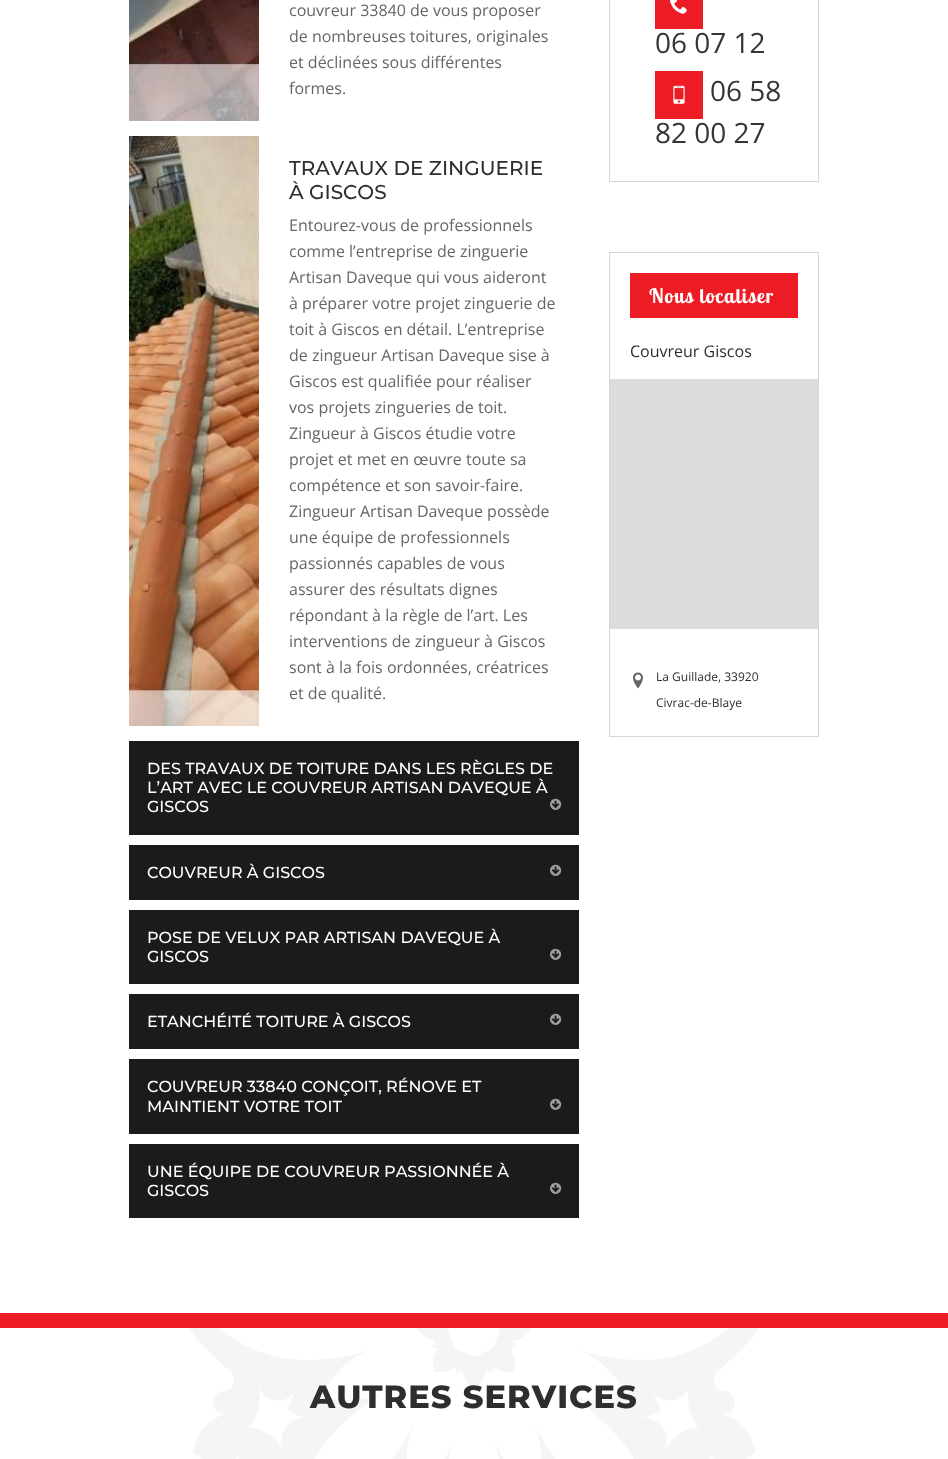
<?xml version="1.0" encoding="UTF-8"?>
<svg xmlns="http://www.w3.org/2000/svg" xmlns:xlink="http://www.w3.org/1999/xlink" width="948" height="1459">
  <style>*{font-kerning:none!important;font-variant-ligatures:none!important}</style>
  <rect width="100%" height="100%" fill="#ffffff" />
  <image x="129" y="0" width="130" height="121" xlink:href="image1.png" />
  <image x="129" y="136" width="130" height="590" xlink:href="image2.png" />
  <rect x="129" y="741" width="450" height="94" fill="#1b1b1a" />
  <image x="550" y="798" width="12" height="12" xlink:href="image3.png" />
  <rect x="129" y="845" width="450" height="55" fill="#1b1b1a" />
  <image x="550" y="864" width="12" height="12" xlink:href="image3.png" />
  <rect x="129" y="910" width="450" height="74" fill="#1b1b1a" />
  <image x="550" y="948" width="12" height="12" xlink:href="image3.png" />
  <rect x="129" y="994" width="450" height="55" fill="#1b1b1a" />
  <image x="550" y="1013" width="12" height="12" xlink:href="image3.png" />
  <rect x="129" y="1059" width="450" height="75" fill="#1b1b1a" />
  <image x="550" y="1098" width="12" height="12" xlink:href="image3.png" />
  <rect x="129" y="1144" width="450" height="74" fill="#1b1b1a" />
  <image x="550" y="1182" width="12" height="12" xlink:href="image3.png" />
  <rect x="609.5" y="-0.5" width="209" height="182" fill="none" stroke="#d6d6d6" />
  <rect x="655" width="48" height="29" fill="#ed1b24" />
  <image x="670" y="0" width="17" height="14" xlink:href="image4.png" />
  <rect x="655" y="71" width="48" height="48" fill="#ed1b24" />
  <image x="673" y="85" width="12" height="19" xlink:href="image5.png" />
  <rect x="609.5" y="252.5" width="209" height="484" fill="none" stroke="#d6d6d6" />
  <rect x="630" y="273" width="168" height="45" fill="#ed1b24" />
  <rect x="610" y="379" width="208" height="250" fill="#dddddd" />
  <image x="633" y="672" width="10" height="17" xlink:href="image6.png" />
  <image x="189" y="1328" width="570" height="131" xlink:href="image7.png" />
  <rect y="1313" width="948" height="15" fill="#ed1b24" />
  <text x="289" y="16" style="font-family: Open Sans; font-size: 16px; fill: #666666">couvreur 33840 de vous proposer</text>
  <text x="289" y="42" style="font-family: Open Sans; font-size: 16px; fill: #666666">de nombreuses toitures, originales</text>
  <text x="289" y="68" style="font-family: Open Sans; font-size: 16px; fill: #666666">et déclinées sous différentes</text>
  <text x="289" y="94" style="font-family: Open Sans; font-size: 16px; fill: #666666">formes.</text>
  <text x="289" y="175" style="font-family: Montserrat; font-size: 20px; font-weight: 500; fill: #2e2e2e">TRAVAUX DE ZINGUERIE</text>
  <text x="289" y="199" style="font-family: Montserrat; font-size: 20px; font-weight: 500; fill: #2e2e2e">À GISCOS</text>
  <text x="289" y="231" style="font-family: Open Sans; font-size: 16px; fill: #666666">Entourez-vous de professionnels</text>
  <text x="289" y="257" style="font-family: Open Sans; font-size: 16px; fill: #666666">comme l’entreprise de zinguerie</text>
  <text x="289" y="283" style="font-family: Open Sans; font-size: 16px; fill: #666666">Artisan Daveque qui vous aideront</text>
  <text x="289" y="309" style="font-family: Open Sans; font-size: 16px; fill: #666666">à préparer votre projet zinguerie de</text>
  <text x="289" y="335" style="font-family: Open Sans; font-size: 16px; fill: #666666">toit à Giscos en détail. L’entreprise</text>
  <text x="289" y="361" style="font-family: Open Sans; font-size: 16px; fill: #666666">de zingueur Artisan Daveque sise à</text>
  <text x="289" y="387" style="font-family: Open Sans; font-size: 16px; fill: #666666">Giscos est qualifiée pour réaliser</text>
  <text x="289" y="413" style="font-family: Open Sans; font-size: 16px; fill: #666666">vos projets zingueries de toit.</text>
  <text x="289" y="439" style="font-family: Open Sans; font-size: 16px; fill: #666666">Zingueur à Giscos étudie votre</text>
  <text x="289" y="465" style="font-family: Open Sans; font-size: 16px; fill: #666666">projet et met en œuvre toute sa</text>
  <text x="289" y="491" style="font-family: Open Sans; font-size: 16px; fill: #666666">compétence et son savoir-faire.</text>
  <text x="289" y="517" style="font-family: Open Sans; font-size: 16px; fill: #666666">Zingueur Artisan Daveque possède</text>
  <text x="289" y="543" style="font-family: Open Sans; font-size: 16px; fill: #666666">une équipe de professionnels</text>
  <text x="289" y="569" style="font-family: Open Sans; font-size: 16px; fill: #666666">passionnés capables de vous</text>
  <text x="289" y="595" style="font-family: Open Sans; font-size: 16px; fill: #666666">assurer des résultats dignes</text>
  <text x="289" y="621" style="font-family: Open Sans; font-size: 16px; fill: #666666">répondant à la règle de l’art. Les</text>
  <text x="289" y="647" style="font-family: Open Sans; font-size: 16px; fill: #666666">interventions de zingueur à Giscos</text>
  <text x="289" y="673" style="font-family: Open Sans; font-size: 16px; fill: #666666">sont à la fois ordonnées, créatrices</text>
  <text x="289" y="699" style="font-family: Open Sans; font-size: 16px; fill: #666666">et de qualité.</text>
  <text x="147" y="774" style="font-family: Montserrat; font-size: 16px; font-weight: 500; fill: #ffffff">DES TRAVAUX DE TOITURE DANS LES RÈGLES DE</text>
  <text x="147" y="793" style="font-family: Montserrat; font-size: 16px; font-weight: 500; fill: #ffffff">L’ART AVEC LE COUVREUR ARTISAN DAVEQUE</text>
  <text x="536" y="793" style="font-family: Montserrat; font-size: 16px; font-weight: 500; fill: #ffffff">À</text>
  <text x="147" y="812" style="font-family: Montserrat; font-size: 16px; font-weight: 500; fill: #ffffff">GISCOS</text>
  <text x="147" y="878" style="font-family: Montserrat; font-size: 16px; font-weight: 500; fill: #ffffff">COUVREUR À GISCOS</text>
  <text x="147" y="943" style="font-family: Montserrat; font-size: 16px; font-weight: 500; fill: #ffffff">POSE DE VELUX PAR ARTISAN DAVEQUE À</text>
  <text x="147" y="962" style="font-family: Montserrat; font-size: 16px; font-weight: 500; fill: #ffffff">GISCOS</text>
  <text x="147" y="1027" style="font-family: Montserrat; font-size: 16px; font-weight: 500; fill: #ffffff">ETANCHÉITÉ TOITURE À GISCOS</text>
  <text x="147" y="1092" style="font-family: Montserrat; font-size: 16px; font-weight: 500; fill: #ffffff">COUVREUR 33840 CONÇOIT, RÉNOVE ET</text>
  <text x="147" y="1112" style="font-family: Montserrat; font-size: 16px; font-weight: 500; fill: #ffffff">MAINTIENT VOTRE TOIT</text>
  <text x="147" y="1177" style="font-family: Montserrat; font-size: 16px; font-weight: 500; fill: #ffffff">UNE ÉQUIPE DE COUVREUR PASSIONNÉE À</text>
  <text x="147" y="1196" style="font-family: Montserrat; font-size: 16px; font-weight: 500; fill: #ffffff">GISCOS</text>
  <text x="655" y="53" style="font-family: Open Sans; font-size: 28px; fill: #353535">06 07 12</text>
  <text x="710" y="101" style="font-family: Open Sans; font-size: 28px; fill: #353535">06 58</text>
  <text x="655" y="143" style="font-family: Open Sans; font-size: 28px; fill: #353535">82 00 27</text>
  <text x="649" y="303" style="font-family: Lobster Two; font-size: 20px; font-weight: bold; letter-spacing: 1px; fill: #ffffff">Nous localiser</text>
  <text x="630" y="357" style="font-family: Open Sans; font-size: 16px; fill: #2e2e2e">Couvreur Giscos</text>
  <text x="656" y="681" style="font-family: Open Sans; font-size: 12px; fill: #2e2e2e">La Guillade, 33920</text>
  <text x="656" y="707" style="font-family: Open Sans; font-size: 12px; fill: #2e2e2e">Civrac-de-Blaye</text>
  <text x="310" y="1408" style="font-family: Montserrat; font-size: 32px; font-weight: 800; letter-spacing: 1px; fill: #2e2e2e">AUTRES SERVICES</text>
</svg>
